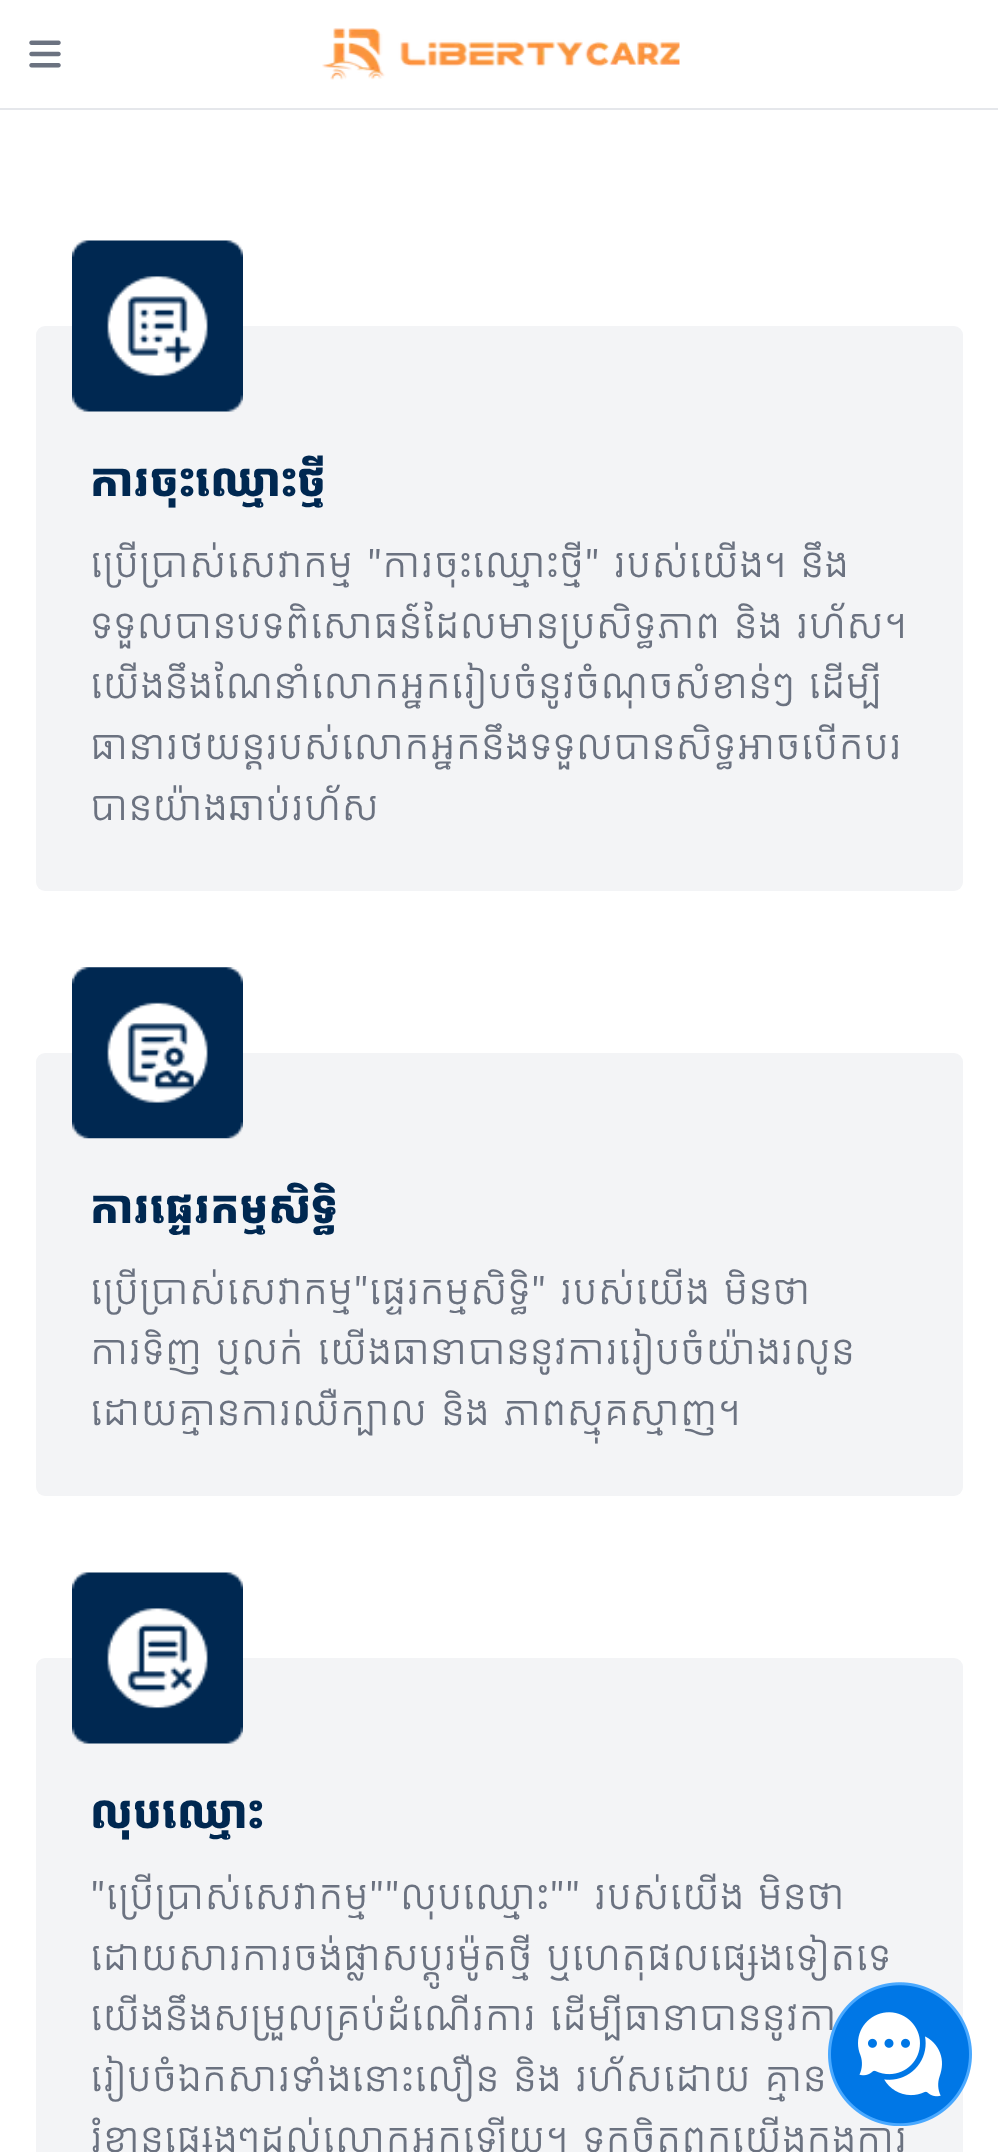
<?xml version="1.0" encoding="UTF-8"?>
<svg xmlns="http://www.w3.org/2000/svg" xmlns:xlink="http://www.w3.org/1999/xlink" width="998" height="2152">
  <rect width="100%" height="100%" fill="#ffffff" />
  <rect y="108" width="998" height="2" fill="#e5e7eb" />
  <image x="29" y="40" width="32" height="28" xlink:href="image1.png" />
  <image x="322" y="28" width="358" height="52" xlink:href="image2.png" />
  <rect x="36" y="326" width="927" height="565" rx="9" fill="#f3f4f6" />
  <image x="72" y="240" width="171" height="172" xlink:href="image3.png" />
  <rect x="36" y="1053" width="927" height="443" rx="9" fill="#f3f4f6" />
  <image x="72" y="967" width="171" height="172" xlink:href="image4.png" />
  <rect x="36" y="1658" width="927" height="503" rx="9" fill="#f3f4f6" />
  <image x="72" y="1572" width="171" height="172" xlink:href="image5.png" />
  <text x="90" y="496" style="font-family: Kantumruy Pro; font-size: 45px; font-weight: bold; fill: #002851">ការចុះឈ្មោះថ្មី</text>
  <text x="90" y="577" style="font-family: Kantumruy Pro; font-size: 40.5px; fill: #6b7280">ប្រើប្រាស់សេវាកម្ម "ការចុះឈ្មោះថ្មី" របស់យើង។ នឹង</text>
  <text x="90" y="638" style="font-family: Kantumruy Pro; font-size: 40.5px; fill: #6b7280">ទទួលបានបទពិសោធន៍ដែលមានប្រសិទ្ធភាព និង រហ័ស។</text>
  <text x="90" y="698" style="font-family: Kantumruy Pro; font-size: 40.5px; fill: #6b7280">យើងនឹងណែនាំលោកអ្នករៀបចំនូវចំណុចសំខាន់ៗ ដើម្បី</text>
  <text x="90" y="759" style="font-family: Kantumruy Pro; font-size: 40.5px; fill: #6b7280">ធានារថយន្តរបស់លោកអ្នកនឹងទទួលបានសិទ្ធអាចបើកបរ</text>
  <text x="90" y="820" style="font-family: Kantumruy Pro; font-size: 40.5px; fill: #6b7280">បានយ៉ាងឆាប់រហ័ស</text>
  <text x="90" y="1223" style="font-family: Kantumruy Pro; font-size: 45px; font-weight: bold; fill: #002851">ការផ្ទេរកម្មសិទ្ធិ</text>
  <text x="90" y="1304" style="font-family: Kantumruy Pro; font-size: 40.5px; fill: #6b7280">ប្រើប្រាស់សេវាកម្ម"ផ្ទេរកម្មសិទ្ធិ" របស់យើង មិនថា</text>
  <text x="90" y="1364" style="font-family: Kantumruy Pro; font-size: 40.5px; fill: #6b7280">ការទិញ ឬលក់ យើងធានាបាននូវការរៀបចំយ៉ាងរលូន</text>
  <text x="90" y="1425" style="font-family: Kantumruy Pro; font-size: 40.5px; fill: #6b7280">ដោយគ្មានការឈឺក្បាល និង ភាពស្មុគស្មាញ។</text>
  <text x="90" y="1828" style="font-family: Kantumruy Pro; font-size: 45px; font-weight: bold; fill: #002851">លុបឈ្មោះ</text>
  <text x="90" y="1909" style="font-family: Kantumruy Pro; font-size: 40.5px; fill: #6b7280">"ប្រើប្រាស់សេវាកម្ម""លុបឈ្មោះ"" របស់យើង មិនថា</text>
  <text x="90" y="1970" style="font-family: Kantumruy Pro; font-size: 40.5px; fill: #6b7280">ដោយសារការចង់ផ្លាសប្តូរម៉ូតថ្មី ឬហេតុផលផ្សេងទៀតទេ</text>
  <text x="90" y="2030" style="font-family: Kantumruy Pro; font-size: 40.5px; fill: #6b7280">យើងនឹងសម្រួលគ្រប់ដំណើរការ ដើម្បីធានាបាននូវកា</text>
  <text x="90" y="2091" style="font-family: Kantumruy Pro; font-size: 40.5px; fill: #6b7280">រៀបចំឯកសារទាំងនោះលឿន និង រហ័សដោយ គ្មាន</text>
  <text x="90" y="2152" style="font-family: Kantumruy Pro; font-size: 40.5px; fill: #6b7280">រំខានផ្សេងៗដល់លោកអ្នកឡើយ។ ទុកចិត្តពួកយើងក្នុងការ</text>
  <image x="828" y="1982" width="144" height="144" xlink:href="image6.png" />
</svg>
